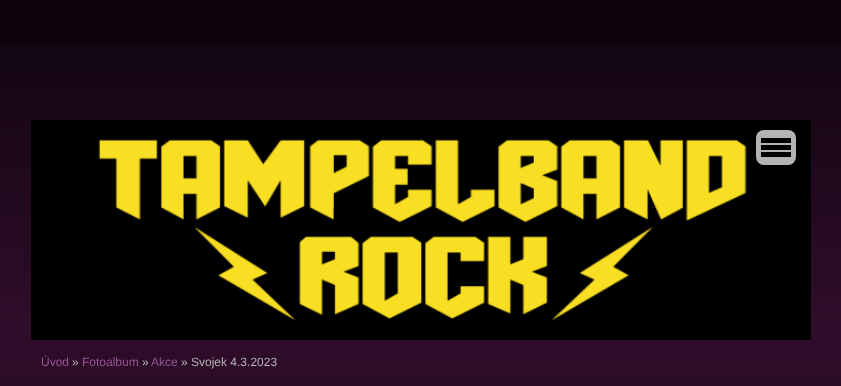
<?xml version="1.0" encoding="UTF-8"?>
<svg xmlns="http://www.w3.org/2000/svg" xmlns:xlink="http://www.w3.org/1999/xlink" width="841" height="386">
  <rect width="100%" height="100%" fill="#0e040d" />
  <image x="0" y="45" width="841" height="341" xlink:href="image1.png" />
  <rect x="31" y="120" width="780" height="220" fill="#000000" />
  <rect x="756" y="130" width="40" height="35" rx="8" fill="#b3b3b3" />
  <rect x="761" y="138" width="30" height="5" fill="#000000" />
  <rect x="761" y="145" width="30" height="5" fill="#000000" />
  <rect x="761" y="152" width="30" height="5" fill="#000000" />
  <image x="98" y="139" width="649" height="182" xlink:href="image2.png" />
  <text x="41" y="366" style="font-family: Liberation Sans; font-size: 12px; fill: #985595">Úvod</text>
  <text x="72" y="366" style="font-family: Liberation Sans; font-size: 12px; fill: #b7b4b7">»</text>
  <text x="82" y="366" style="font-family: Liberation Sans; font-size: 12px; fill: #985595">Fotoalbum</text>
  <text x="142" y="366" style="font-family: Liberation Sans; font-size: 12px; fill: #b7b4b7">»</text>
  <text x="151" y="366" style="font-family: Liberation Sans; font-size: 12px; fill: #985595">Akce</text>
  <text x="181" y="366" style="font-family: Liberation Sans; font-size: 12px; fill: #b7b4b7">» Svojek 4.3.2023</text>
</svg>
